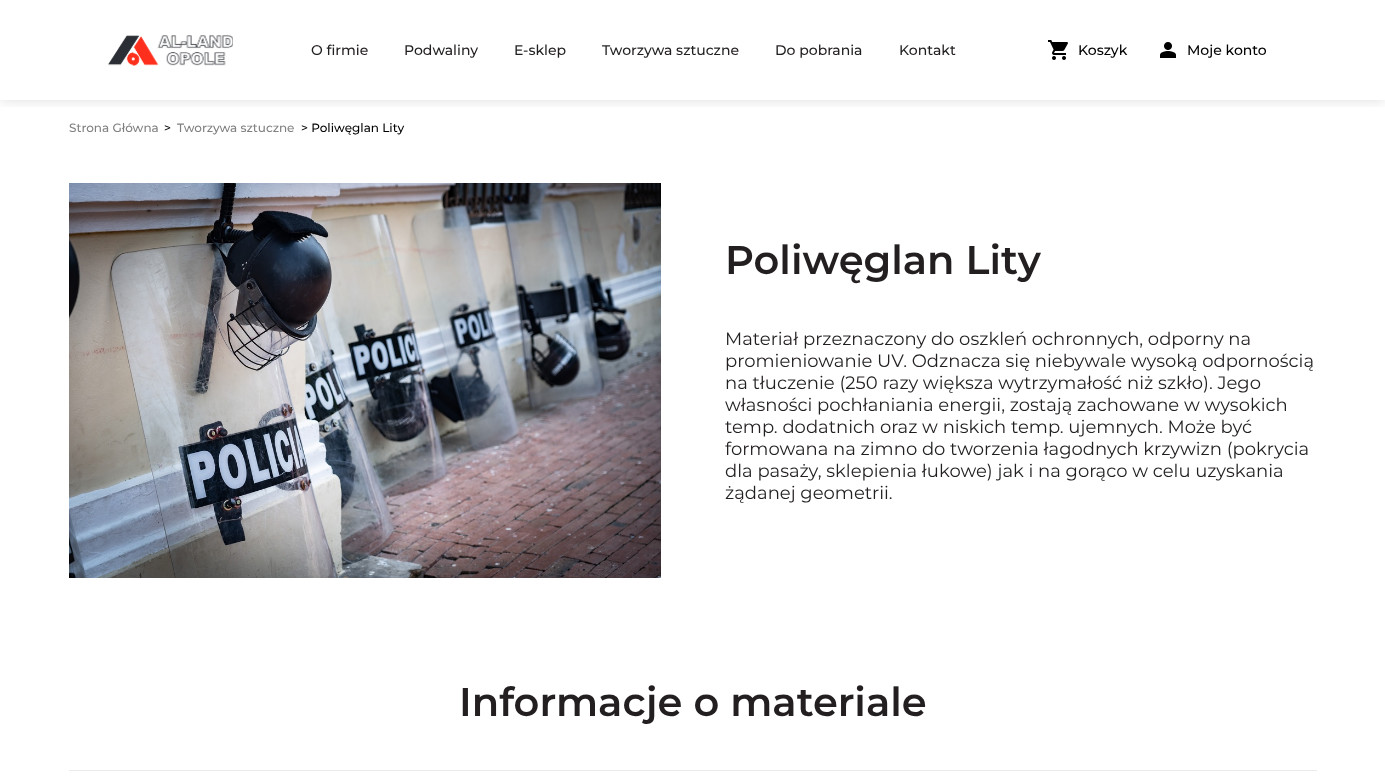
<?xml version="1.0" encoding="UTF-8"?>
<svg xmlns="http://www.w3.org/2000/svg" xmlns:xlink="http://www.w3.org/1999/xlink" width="1385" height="781">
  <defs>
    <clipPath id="clip1"><rect x="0" y="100" width="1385" height="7" /></clipPath>
  </defs>
  <rect width="100%" height="100%" fill="#ffffff" />
  <g clip-path="url(#clip1)">
    <rect y="2" width="1385" height="100" fill="#000000" fill-opacity="0.1" filter="blur(6px)" />
  </g>
  <image x="108" y="35" width="125" height="31" xlink:href="image1.png" />
  <image x="1048" y="40" width="20" height="20" xlink:href="image2.png" />
  <image x="1160" y="42" width="16" height="16" xlink:href="image3.png" />
  <image x="69" y="183" width="592" height="395" xlink:href="image4.png" />
  <rect x="69" y="770" width="1248" height="1" fill="#ebebeb" />
  <text x="311" y="55" style="font-family: Montserrat; font-size: 14px; font-weight: 500; fill: #231f20">O firmie</text>
  <text x="404" y="55" style="font-family: Montserrat; font-size: 14px; font-weight: 500; fill: #231f20">Podwaliny</text>
  <text x="514" y="55" style="font-family: Montserrat; font-size: 14px; font-weight: 500; fill: #231f20">E-sklep</text>
  <text x="602" y="55" style="font-family: Montserrat; font-size: 14px; font-weight: 500; fill: #231f20">Tworzywa sztuczne</text>
  <text x="775" y="55" style="font-family: Montserrat; font-size: 14px; font-weight: 500; fill: #231f20">Do pobrania</text>
  <text x="899" y="55" style="font-family: Montserrat; font-size: 14px; font-weight: 500; fill: #231f20">Kontakt</text>
  <text x="1078" y="55" style="font-family: Montserrat; font-size: 14px; font-weight: 500; fill: #000000">Koszyk</text>
  <text x="1187" y="55" style="font-family: Montserrat; font-size: 14px; font-weight: 500; fill: #000000">Moje konto</text>
  <text x="69" y="132" style="font-family: Montserrat; font-size: 12px; font-weight: 500; fill: #808080">Strona Główna</text>
  <text x="164" y="132" style="font-family: Montserrat; font-size: 12px; font-weight: 500; fill: #000000">&gt;</text>
  <text x="177" y="132" style="font-family: Montserrat; font-size: 12px; font-weight: 500; fill: #808080">Tworzywa sztuczne</text>
  <text x="301" y="132" style="font-family: Montserrat; font-size: 12px; font-weight: 500; fill: #000000">&gt; Poliwęglan Lity</text>
  <text x="725" y="274" style="font-family: Montserrat; font-size: 40px; font-weight: 600; fill: #231f20">Poliwęglan Lity</text>
  <text x="725" y="345" style="font-family: Montserrat; font-size: 18px; fill: #231f20">Materiał przeznaczony do oszkleń ochronnych, odporny na</text>
  <text x="725" y="367" style="font-family: Montserrat; font-size: 18px; fill: #231f20">promieniowanie UV. Odznacza się niebywale wysoką odpornością</text>
  <text x="725" y="389" style="font-family: Montserrat; font-size: 18px; fill: #231f20">na tłuczenie (250 razy większa wytrzymałość niż szkło). Jego</text>
  <text x="725" y="411" style="font-family: Montserrat; font-size: 18px; fill: #231f20">własności pochłaniania energii, zostają zachowane w wysokich</text>
  <text x="725" y="433" style="font-family: Montserrat; font-size: 18px; fill: #231f20">temp. dodatnich oraz w niskich temp. ujemnych. Może być</text>
  <text x="725" y="455" style="font-family: Montserrat; font-size: 18px; fill: #231f20">formowana na zimno do tworzenia łagodnych krzywizn (pokrycia</text>
  <text x="725" y="477" style="font-family: Montserrat; font-size: 18px; fill: #231f20">dla pasaży, sklepienia łukowe) jak i na gorąco w celu uzyskania</text>
  <text x="725" y="499" style="font-family: Montserrat; font-size: 18px; fill: #231f20">żądanej geometrii.</text>
  <text x="459" y="716" style="font-family: Montserrat; font-size: 40px; font-weight: 600; fill: #231f20">Informacje o materiale</text>
</svg>
